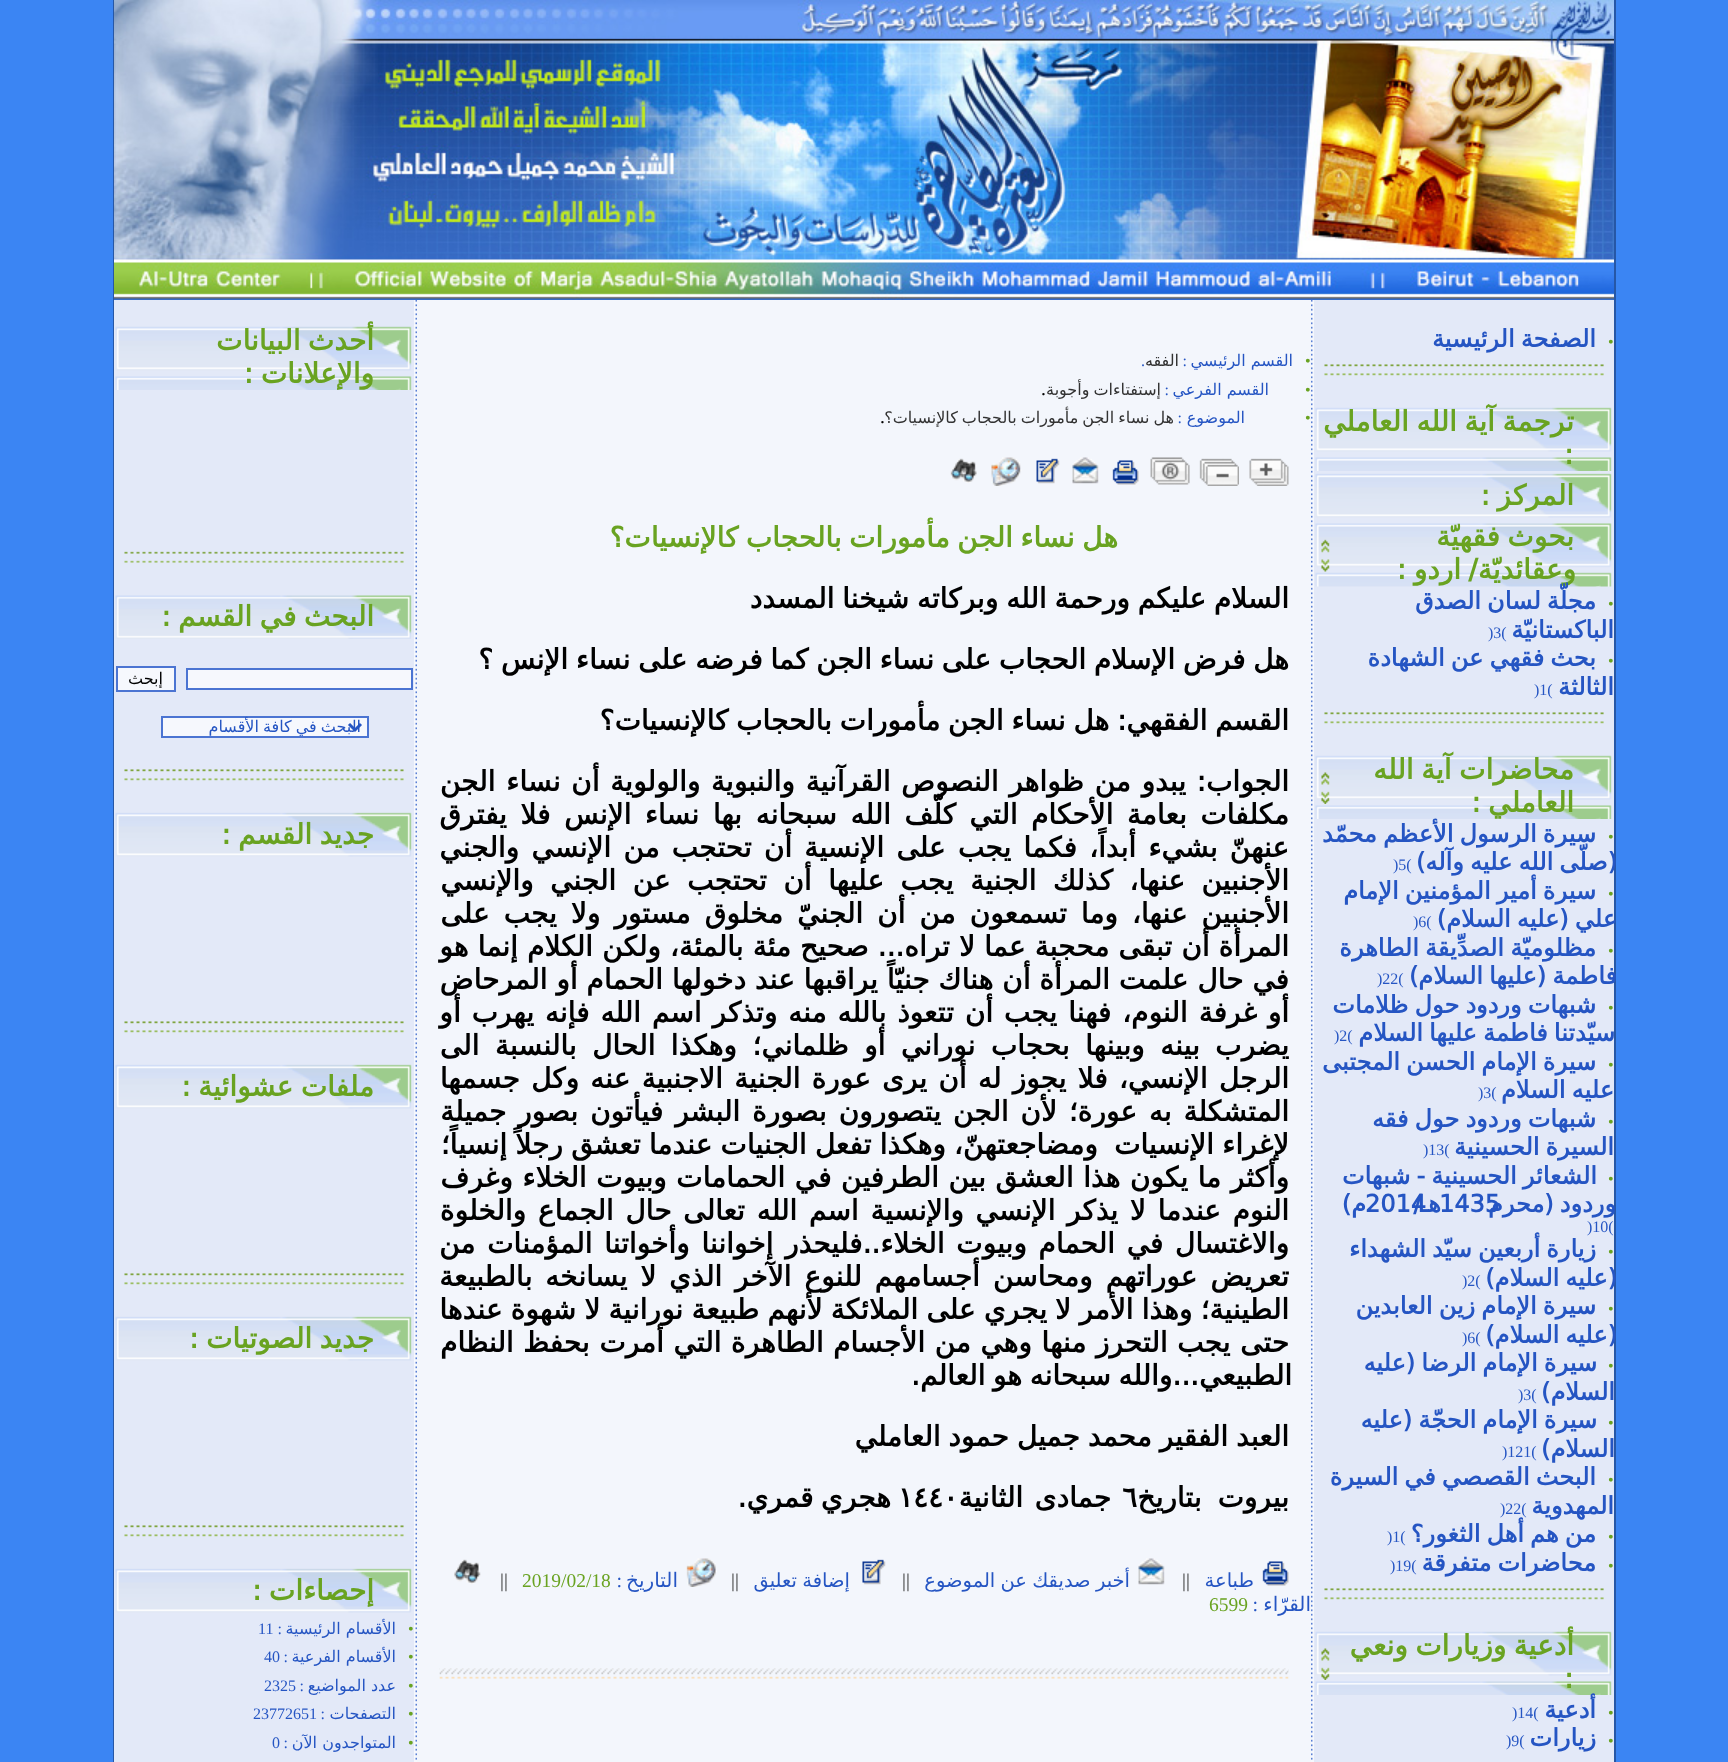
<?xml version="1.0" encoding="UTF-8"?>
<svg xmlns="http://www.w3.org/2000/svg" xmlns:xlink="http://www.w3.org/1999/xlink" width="1728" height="1762">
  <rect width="100%" height="100%" fill="#3b85f3" />
  <rect x="1614" width="2" height="1762" fill="#2657a6" />
  <rect x="113" width="1" height="1762" fill="#2657a6" />
  <image x="114" y="0" width="1500" height="300" xlink:href="image1.png" />
  <rect x="1314" y="300" width="300" height="1462" fill="#e3e9f8" />
  <image x="1324" y="364" width="280" height="12" xlink:href="image2.png" />
  <image x="1315" y="407" width="297" height="64" xlink:href="image3.png" />
  <image x="1315" y="473" width="297" height="45" xlink:href="image4.png" />
  <image x="1315" y="523" width="297" height="64" xlink:href="image5.png" />
  <image x="1321" y="539" width="9" height="33" xlink:href="image6.png" />
  <image x="1324" y="712" width="280" height="12" xlink:href="image2.png" />
  <image x="1315" y="755" width="297" height="64" xlink:href="image7.png" />
  <image x="1321" y="772" width="9" height="32" xlink:href="image8.png" />
  <image x="1324" y="1588" width="280" height="12" xlink:href="image2.png" />
  <image x="1315" y="1631" width="297" height="64" xlink:href="image9.png" />
  <image x="1321" y="1648" width="9" height="32" xlink:href="image10.png" />
  <image x="1311" y="300" width="3" height="1462" xlink:href="image11.png" />
  <rect x="417" y="300" width="894" height="1462" fill="#f3f6fc" />
  <image x="1249" y="458" width="40" height="28" xlink:href="image12.png" />
  <image x="1199" y="458" width="40" height="28" xlink:href="image13.png" />
  <image x="1150" y="457" width="40" height="28" xlink:href="image14.png" />
  <image x="1112" y="460" width="27" height="25" xlink:href="image15.png" />
  <image x="1072" y="457" width="27" height="27" xlink:href="image16.png" />
  <image x="1036" y="458" width="24" height="26" xlink:href="image17.png" />
  <image x="991" y="457" width="31" height="29" xlink:href="image18.png" />
  <image x="950" y="458" width="27" height="25" xlink:href="image19.png" />
  <image x="1262" y="1561" width="27" height="25" xlink:href="image15.png" />
  <image x="1138" y="1558" width="27" height="27" xlink:href="image16.png" />
  <image x="862" y="1559" width="24" height="26" xlink:href="image20.png" />
  <image x="686" y="1558" width="31" height="29" xlink:href="image21.png" />
  <image x="454" y="1559" width="27" height="25" xlink:href="image22.png" />
  <image x="439" y="1668" width="850" height="11" xlink:href="image23.png" />
  <image x="414" y="300" width="3" height="1462" xlink:href="image24.png" />
  <rect x="114" y="300" width="300" height="1462" fill="#e3e9f8" />
  <image x="115" y="326" width="297" height="64" xlink:href="image25.png" />
  <image x="124" y="551" width="280" height="12" xlink:href="image26.png" />
  <image x="115" y="595" width="297" height="44" xlink:href="image27.png" />
  <rect x="187" y="669" width="225" height="20" fill="#f6f8fd" stroke="#4b74d2" stroke-width="2" />
  <rect x="117" y="667" width="58" height="24" fill="#f6f8fd" stroke="#4b74d2" stroke-width="2" />
  <rect x="162" y="717" width="206" height="20" fill="#f6f8fd" stroke="#4b74d2" stroke-width="2" />
  <path d="M 349 724 l 6 6 l 6 -6" fill="none" stroke="#2555c3" stroke-width="3" />
  <image x="124" y="769" width="280" height="12" xlink:href="image28.png" />
  <image x="115" y="812" width="297" height="45" xlink:href="image29.png" />
  <image x="124" y="1021" width="280" height="12" xlink:href="image28.png" />
  <image x="115" y="1064" width="297" height="45" xlink:href="image29.png" />
  <image x="124" y="1273" width="280" height="12" xlink:href="image28.png" />
  <image x="115" y="1316" width="297" height="45" xlink:href="image29.png" />
  <image x="124" y="1525" width="280" height="12" xlink:href="image28.png" />
  <image x="115" y="1568" width="297" height="45" xlink:href="image29.png" />
  <text x="1608" y="347" style="font-family: Liberation Serif; font-size: 16px; fill: #69a321">•</text>
  <text x="1596" y="347" word-spacing="-1.5" style="font-family: DejaVu Sans; font-size: 24px; font-weight: bold; direction: rtl; fill: #2555c3">الصفحة الرئيسية</text>
  <text x="1574" y="431" word-spacing="-1.5" style="font-family: DejaVu Sans; font-size: 28px; font-weight: bold; direction: rtl; fill: #69a321">ترجمة آية الله العاملي</text>
  <text x="1564" y="464" style="font-family: DejaVu Sans; font-size: 28px; font-weight: bold; fill: #69a321">:</text>
  <text x="1574" y="505" word-spacing="-1.5" style="font-family: DejaVu Sans; font-size: 28px; font-weight: bold; direction: rtl; fill: #69a321">المركز :</text>
  <text x="1574" y="546" word-spacing="-1.5" style="font-family: DejaVu Sans; font-size: 28px; font-weight: bold; direction: rtl; fill: #69a321">بحوث فقهيّة</text>
  <text x="1576" y="579" word-spacing="-1.5" style="font-family: DejaVu Sans; font-size: 28px; font-weight: bold; direction: rtl; fill: #69a321">وعقائديّة/ اردو :</text>
  <text x="1608" y="609" style="font-family: Liberation Serif; font-size: 16px; fill: #69a321">•</text>
  <text x="1596" y="609" word-spacing="-1.5" style="font-family: DejaVu Sans; font-size: 24px; font-weight: bold; direction: rtl; fill: #2555c3">مجلّة لسان الصدق</text>
  <text x="1614" y="638" style="font-family: DejaVu Sans; font-size: 24px; font-weight: bold; direction: rtl; fill: #2555c3">الباكستانيّة</text>
  <text x="1488" y="638" style="font-family: Liberation Serif; font-size: 16px; fill: #2555c3">)3(</text>
  <text x="1608" y="666" style="font-family: Liberation Serif; font-size: 16px; fill: #69a321">•</text>
  <text x="1596" y="666" word-spacing="-1.5" style="font-family: DejaVu Sans; font-size: 24px; font-weight: bold; direction: rtl; fill: #2555c3">بحث فقهي عن الشهادة</text>
  <text x="1614" y="695" style="font-family: DejaVu Sans; font-size: 24px; font-weight: bold; direction: rtl; fill: #2555c3">الثالثة</text>
  <text x="1534" y="695" style="font-family: Liberation Serif; font-size: 16px; fill: #2555c3">)1(</text>
  <text x="1574" y="779" word-spacing="-1.5" style="font-family: DejaVu Sans; font-size: 28px; font-weight: bold; direction: rtl; fill: #69a321">محاضرات آية الله</text>
  <text x="1574" y="812" word-spacing="-1.5" style="font-family: DejaVu Sans; font-size: 28px; font-weight: bold; direction: rtl; fill: #69a321">العاملي :</text>
  <text x="1608" y="842" style="font-family: Liberation Serif; font-size: 16px; fill: #69a321">•</text>
  <text x="1596" y="842" word-spacing="-1.5" style="font-family: DejaVu Sans; font-size: 24px; font-weight: bold; direction: rtl; fill: #2555c3">سيرة الرسول الأعظم محمّد</text>
  <text x="1617" y="870" word-spacing="-1.5" style="font-family: DejaVu Sans; font-size: 24px; font-weight: bold; direction: rtl; fill: #2555c3">(صلّى الله عليه وآله)</text>
  <text x="1393" y="870" style="font-family: Liberation Serif; font-size: 16px; fill: #2555c3">)5(</text>
  <text x="1608" y="899" style="font-family: Liberation Serif; font-size: 16px; fill: #69a321">•</text>
  <text x="1596" y="899" word-spacing="-1.5" style="font-family: DejaVu Sans; font-size: 24px; font-weight: bold; direction: rtl; fill: #2555c3">سيرة أمير المؤمنين الإمام</text>
  <text x="1617" y="927" word-spacing="-1.5" style="font-family: DejaVu Sans; font-size: 24px; font-weight: bold; direction: rtl; fill: #2555c3">علي (عليه السلام)</text>
  <text x="1413" y="927" style="font-family: Liberation Serif; font-size: 16px; fill: #2555c3">)6(</text>
  <text x="1608" y="956" style="font-family: Liberation Serif; font-size: 16px; fill: #69a321">•</text>
  <text x="1596" y="956" word-spacing="-1.5" style="font-family: DejaVu Sans; font-size: 24px; font-weight: bold; direction: rtl; fill: #2555c3">مظلوميّة الصدِّيقة الطاهرة</text>
  <text x="1617" y="984" word-spacing="-1.5" style="font-family: DejaVu Sans; font-size: 24px; font-weight: bold; direction: rtl; fill: #2555c3">فاطمة (عليها السلام)</text>
  <text x="1377" y="984" style="font-family: Liberation Serif; font-size: 16px; fill: #2555c3">)22(</text>
  <text x="1608" y="1013" style="font-family: Liberation Serif; font-size: 16px; fill: #69a321">•</text>
  <text x="1596" y="1013" word-spacing="-1.5" style="font-family: DejaVu Sans; font-size: 24px; font-weight: bold; direction: rtl; fill: #2555c3">شبهات وردود حول ظلامات</text>
  <text x="1615" y="1041" word-spacing="-1.5" style="font-family: DejaVu Sans; font-size: 24px; font-weight: bold; direction: rtl; fill: #2555c3">سيّدتنا فاطمة عليها السلام</text>
  <text x="1334" y="1041" style="font-family: Liberation Serif; font-size: 16px; fill: #2555c3">)2(</text>
  <text x="1608" y="1070" style="font-family: Liberation Serif; font-size: 16px; fill: #69a321">•</text>
  <text x="1596" y="1070" word-spacing="-1.5" style="font-family: DejaVu Sans; font-size: 24px; font-weight: bold; direction: rtl; fill: #2555c3">سيرة الإمام الحسن المجتبى</text>
  <text x="1614" y="1098" word-spacing="-1.5" style="font-family: DejaVu Sans; font-size: 24px; font-weight: bold; direction: rtl; fill: #2555c3">عليه السلام</text>
  <text x="1478" y="1098" style="font-family: Liberation Serif; font-size: 16px; fill: #2555c3">)3(</text>
  <text x="1608" y="1127" style="font-family: Liberation Serif; font-size: 16px; fill: #69a321">•</text>
  <text x="1596" y="1127" word-spacing="-1.5" style="font-family: DejaVu Sans; font-size: 24px; font-weight: bold; direction: rtl; fill: #2555c3">شبهات وردود حول فقه</text>
  <text x="1614" y="1155" word-spacing="-1.5" style="font-family: DejaVu Sans; font-size: 24px; font-weight: bold; direction: rtl; fill: #2555c3">السيرة الحسينية</text>
  <text x="1423" y="1155" style="font-family: Liberation Serif; font-size: 16px; fill: #2555c3">)13(</text>
  <text x="1608" y="1184" style="font-family: Liberation Serif; font-size: 16px; fill: #69a321">•</text>
  <text x="1597" y="1184" word-spacing="-1.5" style="font-family: DejaVu Sans; font-size: 24px; font-weight: bold; direction: rtl; fill: #2555c3">الشعائر الحسينية - شبهات</text>
  <text x="1439" y="1212" style="font-family: DejaVu Sans; font-size: 24px; font-weight: bold; fill: #2555c3">1435</text>
  <text x="1616" y="1212" word-spacing="-1.5" style="font-family: DejaVu Sans; font-size: 24px; font-weight: bold; direction: rtl; fill: #2555c3">وردود (محرم</text>
  <text x="1365" y="1212" style="font-family: DejaVu Sans; font-size: 24px; font-weight: bold; fill: #2555c3">2014</text>
  <text x="1441" y="1212" style="font-family: DejaVu Sans; font-size: 24px; font-weight: bold; direction: rtl; fill: #2555c3">هـ/</text>
  <text x="1366" y="1212" style="font-family: DejaVu Sans; font-size: 24px; font-weight: bold; direction: rtl; fill: #2555c3">م)</text>
  <text x="1587" y="1232" style="font-family: Liberation Serif; font-size: 16px; fill: #2555c3">)10(</text>
  <text x="1608" y="1257" style="font-family: Liberation Serif; font-size: 16px; fill: #69a321">•</text>
  <text x="1596" y="1257" word-spacing="-1.5" style="font-family: DejaVu Sans; font-size: 24px; font-weight: bold; direction: rtl; fill: #2555c3">زيارة أربعين سيّد الشهداء</text>
  <text x="1617" y="1286" word-spacing="-1.5" style="font-family: DejaVu Sans; font-size: 24px; font-weight: bold; direction: rtl; fill: #2555c3">(عليه السلام)</text>
  <text x="1462" y="1286" style="font-family: Liberation Serif; font-size: 16px; fill: #2555c3">)2(</text>
  <text x="1608" y="1314" style="font-family: Liberation Serif; font-size: 16px; fill: #69a321">•</text>
  <text x="1596" y="1314" word-spacing="-1.5" style="font-family: DejaVu Sans; font-size: 24px; font-weight: bold; direction: rtl; fill: #2555c3">سيرة الإمام زين العابدين</text>
  <text x="1617" y="1343" word-spacing="-1.5" style="font-family: DejaVu Sans; font-size: 24px; font-weight: bold; direction: rtl; fill: #2555c3">(عليه السلام)</text>
  <text x="1462" y="1343" style="font-family: Liberation Serif; font-size: 16px; fill: #2555c3">)6(</text>
  <text x="1608" y="1371" style="font-family: Liberation Serif; font-size: 16px; fill: #69a321">•</text>
  <text x="1597" y="1371" word-spacing="-1.5" style="font-family: DejaVu Sans; font-size: 24px; font-weight: bold; direction: rtl; fill: #2555c3">سيرة الإمام الرضا (عليه</text>
  <text x="1615" y="1400" style="font-family: DejaVu Sans; font-size: 24px; font-weight: bold; direction: rtl; fill: #2555c3">السلام)</text>
  <text x="1518" y="1400" style="font-family: Liberation Serif; font-size: 16px; fill: #2555c3">)3(</text>
  <text x="1608" y="1428" style="font-family: Liberation Serif; font-size: 16px; fill: #69a321">•</text>
  <text x="1597" y="1428" word-spacing="-1.5" style="font-family: DejaVu Sans; font-size: 24px; font-weight: bold; direction: rtl; fill: #2555c3">سيرة الإمام الحجّة (عليه</text>
  <text x="1615" y="1457" style="font-family: DejaVu Sans; font-size: 24px; font-weight: bold; direction: rtl; fill: #2555c3">السلام)</text>
  <text x="1502" y="1457" style="font-family: Liberation Serif; font-size: 16px; fill: #2555c3">)121(</text>
  <text x="1608" y="1485" style="font-family: Liberation Serif; font-size: 16px; fill: #69a321">•</text>
  <text x="1596" y="1485" word-spacing="-1.5" style="font-family: DejaVu Sans; font-size: 24px; font-weight: bold; direction: rtl; fill: #2555c3">البحث القصصي في السيرة</text>
  <text x="1614" y="1514" style="font-family: DejaVu Sans; font-size: 24px; font-weight: bold; direction: rtl; fill: #2555c3">المهدوية</text>
  <text x="1500" y="1514" style="font-family: Liberation Serif; font-size: 16px; fill: #2555c3">)22(</text>
  <text x="1608" y="1542" style="font-family: Liberation Serif; font-size: 16px; fill: #69a321">•</text>
  <text x="1596" y="1542" word-spacing="-1.5" style="font-family: DejaVu Sans; font-size: 24px; font-weight: bold; direction: rtl; fill: #2555c3">من هم أهل الثغور؟</text>
  <text x="1387" y="1542" style="font-family: Liberation Serif; font-size: 16px; fill: #2555c3">)1(</text>
  <text x="1608" y="1571" style="font-family: Liberation Serif; font-size: 16px; fill: #69a321">•</text>
  <text x="1596" y="1571" word-spacing="-1.5" style="font-family: DejaVu Sans; font-size: 24px; font-weight: bold; direction: rtl; fill: #2555c3">محاضرات متفرقة</text>
  <text x="1390" y="1571" style="font-family: Liberation Serif; font-size: 16px; fill: #2555c3">)19(</text>
  <text x="1574" y="1655" word-spacing="-1.5" style="font-family: DejaVu Sans; font-size: 28px; font-weight: bold; direction: rtl; fill: #69a321">أدعية وزيارات ونعي</text>
  <text x="1564" y="1688" style="font-family: DejaVu Sans; font-size: 28px; font-weight: bold; fill: #69a321">:</text>
  <text x="1608" y="1718" style="font-family: Liberation Serif; font-size: 16px; fill: #69a321">•</text>
  <text x="1596" y="1718" style="font-family: DejaVu Sans; font-size: 24px; font-weight: bold; direction: rtl; fill: #2555c3">أدعية</text>
  <text x="1512" y="1718" style="font-family: Liberation Serif; font-size: 16px; fill: #2555c3">)14(</text>
  <text x="1608" y="1746" style="font-family: Liberation Serif; font-size: 16px; fill: #69a321">•</text>
  <text x="1596" y="1746" style="font-family: DejaVu Sans; font-size: 24px; font-weight: bold; direction: rtl; fill: #2555c3">زيارات</text>
  <text x="1506" y="1746" style="font-family: Liberation Serif; font-size: 16px; fill: #2555c3">)9(</text>
  <text x="1305" y="366" style="font-family: Liberation Serif; font-size: 16px; fill: #69a321">•</text>
  <text x="1293" y="366" style="font-family: DejaVu Sans; font-size: 16px; direction: rtl; fill: #2555c3">القسم الرئيسي</text>
  <text x="1187" y="366" style="font-family: Liberation Serif; font-size: 16px; direction: rtl; fill: #2555c3">:</text>
  <text x="1179" y="366" style="font-family: DejaVu Sans; font-size: 16px; direction: rtl; fill: #323232">الفقه</text>
  <text x="1141" y="366" style="font-family: Liberation Serif; font-size: 16px; fill: #2555c3">.</text>
  <text x="1305" y="395" style="font-family: Liberation Serif; font-size: 16px; fill: #69a321">•</text>
  <text x="1269" y="395" style="font-family: DejaVu Sans; font-size: 16px; direction: rtl; fill: #2555c3">القسم الفرعي</text>
  <text x="1169" y="395" style="font-family: Liberation Serif; font-size: 16px; direction: rtl; fill: #2555c3">:</text>
  <text x="1161" y="395" word-spacing="-1" style="font-family: DejaVu Sans; font-size: 16px; direction: rtl; fill: #323232">إستفتاءات وأجوبة</text>
  <text x="1041" y="395" style="font-family: Liberation Serif; font-size: 19.5px; fill: #000000">.</text>
  <text x="1305" y="423" style="font-family: Liberation Serif; font-size: 16px; fill: #69a321">•</text>
  <text x="1245" y="423" style="font-family: DejaVu Sans; font-size: 16px; direction: rtl; fill: #2555c3">الموضوع</text>
  <text x="1182" y="423" style="font-family: Liberation Serif; font-size: 16px; direction: rtl; fill: #2555c3">:</text>
  <text x="1174" y="423" word-spacing="-1" style="font-family: DejaVu Sans; font-size: 16px; direction: rtl; fill: #323232">هل نساء الجن مأمورات بالحجاب كالإنسيات؟</text>
  <text x="880" y="423" style="font-family: Liberation Serif; font-size: 19.5px; fill: #000000">.</text>
  <text x="1118" y="547" word-spacing="-1.5" style="font-family: DejaVu Sans; font-size: 28px; font-weight: bold; direction: rtl; fill: #69a321">هل نساء الجن مأمورات بالحجاب كالإنسيات؟</text>
  <text x="1289" y="608" word-spacing="-1.2" style="font-family: DejaVu Sans; font-size: 28px; font-weight: bold; direction: rtl; fill: #000000">السلام عليكم ورحمة الله وبركاته شيخنا المسدد</text>
  <text x="1289" y="669" word-spacing="-1.2" style="font-family: DejaVu Sans; font-size: 28px; font-weight: bold; direction: rtl; fill: #000000">هل فرض الإسلام الحجاب على نساء الجن كما فرضه على نساء الإنس ؟</text>
  <text x="1289" y="730" word-spacing="-1.25" style="font-family: DejaVu Sans; font-size: 28px; font-weight: bold; direction: rtl; fill: #000000">القسم الفقهي: هل نساء الجن مأمورات بالحجاب كالإنسيات؟</text>
  <text x="1289" y="791" word-spacing="1.75" style="font-family: DejaVu Sans; font-size: 28px; font-weight: bold; direction: rtl; fill: #000000">الجواب: يبدو من ظواهر النصوص القرآنية والنبوية والولوية أن نساء الجن</text>
  <text x="1289" y="824" word-spacing="4.6" style="font-family: DejaVu Sans; font-size: 28px; font-weight: bold; direction: rtl; fill: #000000">مكلفات بعامة الأحكام التي كلّف الله سبحانه بها نساء الإنس فلا يفترق</text>
  <text x="1289" y="857" word-spacing="3.25" style="font-family: DejaVu Sans; font-size: 28px; font-weight: bold; direction: rtl; fill: #000000">عنهنّ بشيء أبداً، فكما يجب على الإنسية أن تحتجب من الإنسي والجني</text>
  <text x="1289" y="890" word-spacing="7.5" style="font-family: DejaVu Sans; font-size: 28px; font-weight: bold; direction: rtl; fill: #000000">الأجنبين عنها، كذلك الجنية يجب عليها أن تحتجب عن الجني والإنسي</text>
  <text x="1289" y="923" word-spacing="5" style="font-family: DejaVu Sans; font-size: 28px; font-weight: bold; direction: rtl; fill: #000000">الأجنبين عنها، وما تسمعون من أن الجنيّ مخلوق مستور ولا يجب على</text>
  <text x="1289" y="956" word-spacing="0.2" style="font-family: DejaVu Sans; font-size: 28px; font-weight: bold; direction: rtl; fill: #000000">المرأة أن تبقى محجبة عما لا تراه... صحيح مئة بالمئة، ولكن الكلام إنما هو</text>
  <text x="1289" y="989" style="font-family: DejaVu Sans; font-size: 28px; font-weight: bold; direction: rtl; fill: #000000">في حال علمت المرأة أن هناك جنيّاً يراقبها عند دخولها الحمام أو المرحاض</text>
  <text x="1289" y="1022" word-spacing="1.9" style="font-family: DejaVu Sans; font-size: 28px; font-weight: bold; direction: rtl; fill: #000000">أو غرفة النوم، فهنا يجب أن تتعوذ بالله منه وتذكر اسم الله فإنه يهرب أو</text>
  <text x="1289" y="1055" word-spacing="6.5" style="font-family: DejaVu Sans; font-size: 28px; font-weight: bold; direction: rtl; fill: #000000">يضرب بينه وبينها بحجاب نوراني أو ظلماني؛ وهكذا الحال بالنسبة الى</text>
  <text x="1289" y="1088" word-spacing="2.25" style="font-family: DejaVu Sans; font-size: 28px; font-weight: bold; direction: rtl; fill: #000000">الرجل الإنسي، فلا يجوز له أن يرى عورة الجنية الاجنبية عنه وكل جسمها</text>
  <text x="1289" y="1121" word-spacing="2.9" style="font-family: DejaVu Sans; font-size: 28px; font-weight: bold; direction: rtl; fill: #000000">المتشكلة به عورة؛ لأن الجن يتصورون بصورة البشر فيأتون بصور جميلة</text>
  <text x="1289" y="1154" word-spacing="-0.75" style="font-family: DejaVu Sans; font-size: 28px; font-weight: bold; direction: rtl; fill: #000000" xml:space="preserve">لإغراء الإنسيات  ومضاجعتهنّ، وهكذا تفعل الجنيات عندما تعشق رجلاً إنسياً؛</text>
  <text x="1289" y="1187" word-spacing="0.6" style="font-family: DejaVu Sans; font-size: 28px; font-weight: bold; direction: rtl; fill: #000000">وأكثر ما يكون هذا العشق بين الطرفين في الحمامات وبيوت الخلاء وغرف</text>
  <text x="1289" y="1220" word-spacing="2.75" style="font-family: DejaVu Sans; font-size: 28px; font-weight: bold; direction: rtl; fill: #000000">النوم عندما لا يذكر الإنسي والإنسية اسم الله تعالى حال الجماع والخلوة</text>
  <text x="1289" y="1253" word-spacing="2.75" style="font-family: DejaVu Sans; font-size: 28px; font-weight: bold; direction: rtl; fill: #000000">والاغتسال في الحمام وبيوت الخلاء..فليحذر إخواننا وأخواتنا المؤمنات من</text>
  <text x="1289" y="1286" word-spacing="4" style="font-family: DejaVu Sans; font-size: 28px; font-weight: bold; direction: rtl; fill: #000000">تعريض عوراتهم ومحاسن أجسامهم للنوع الآخر الذي لا يسانخه بالطبيعة</text>
  <text x="1289" y="1319" word-spacing="-0.75" style="font-family: DejaVu Sans; font-size: 28px; font-weight: bold; direction: rtl; fill: #000000">الطينية؛ وهذا الأمر لا يجري على الملائكة لأنهم طبيعة نورانية لا شهوة عندها</text>
  <text x="1289" y="1352" word-spacing="0.6" style="font-family: DejaVu Sans; font-size: 28px; font-weight: bold; direction: rtl; fill: #000000">حتى يجب التحرز منها وهي من الأجسام الطاهرة التي أمرت بحفظ النظام</text>
  <text x="1292" y="1385" word-spacing="-1.5" style="font-family: DejaVu Sans; font-size: 28px; font-weight: bold; direction: rtl; fill: #000000">الطبيعي...والله سبحانه هو العالم.</text>
  <text x="1289" y="1446" word-spacing="-1" style="font-family: DejaVu Sans; font-size: 28px; font-weight: bold; direction: rtl; fill: #000000">العبد الفقير محمد جميل حمود العاملي</text>
  <text x="1289" y="1507" word-spacing="7" style="font-family: DejaVu Sans; font-size: 28px; font-weight: bold; direction: rtl; fill: #000000">بيروت بتاريخ</text>
  <text x="1122" y="1507" style="font-family: DejaVu Sans; font-size: 28px; font-weight: bold; fill: #000000">٦</text>
  <text x="1111" y="1507" word-spacing="2.75" style="font-family: DejaVu Sans; font-size: 28px; font-weight: bold; direction: rtl; fill: #000000">جمادى الثانية</text>
  <text x="898" y="1507" style="font-family: DejaVu Sans; font-size: 28px; font-weight: bold; fill: #000000">١٤٤٠</text>
  <text x="891" y="1507" word-spacing="-1.5" style="font-family: DejaVu Sans; font-size: 28px; font-weight: bold; direction: rtl; fill: #000000">هجري قمري.</text>
  <text x="1254" y="1587" style="font-family: DejaVu Sans; font-size: 19.5px; direction: rtl; fill: #2555c3">طباعة</text>
  <text x="1182" y="1587" style="font-family: Liberation Serif; font-size: 19.5px; fill: #323232">||</text>
  <text x="1130" y="1587" word-spacing="-1" style="font-family: DejaVu Sans; font-size: 19.5px; direction: rtl; fill: #2555c3">أخبر صديقك عن الموضوع</text>
  <text x="902" y="1587" style="font-family: Liberation Serif; font-size: 19.5px; fill: #323232">||</text>
  <text x="850" y="1587" word-spacing="-0.75" style="font-family: DejaVu Sans; font-size: 19.5px; direction: rtl; fill: #2555c3">إضافة تعليق</text>
  <text x="731" y="1587" style="font-family: Liberation Serif; font-size: 19.5px; fill: #323232">||</text>
  <text x="678" y="1587" style="font-family: DejaVu Sans; font-size: 20px; direction: rtl; fill: #2555c3">التاريخ</text>
  <text x="622" y="1587" style="font-family: Liberation Serif; font-size: 20px; direction: rtl; fill: #2555c3">:</text>
  <text x="522" y="1587" style="font-family: Liberation Serif; font-size: 19.5px; fill: #69a321">2019/02/18</text>
  <text x="500" y="1587" style="font-family: Liberation Serif; font-size: 19.5px; fill: #323232">||</text>
  <text x="1311" y="1611" style="font-family: DejaVu Sans; font-size: 20px; direction: rtl; fill: #2555c3">القرّاء</text>
  <text x="1258" y="1611" style="font-family: Liberation Serif; font-size: 20px; direction: rtl; fill: #2555c3">:</text>
  <text x="1209" y="1611" style="font-family: Liberation Serif; font-size: 19.5px; fill: #69a321">6599</text>
  <text x="374" y="350" word-spacing="-1.5" style="font-family: DejaVu Sans; font-size: 28px; font-weight: bold; direction: rtl; fill: #69a321">أحدث البيانات</text>
  <text x="374" y="383" word-spacing="-1.5" style="font-family: DejaVu Sans; font-size: 28px; font-weight: bold; direction: rtl; fill: #69a321">والإعلانات :</text>
  <text x="374" y="626" word-spacing="-1.5" style="font-family: DejaVu Sans; font-size: 28px; font-weight: bold; direction: rtl; fill: #69a321">البحث في القسم :</text>
  <text x="163" y="684" style="font-family: DejaVu Sans; font-size: 16px; direction: rtl; fill: #000000">إبحث</text>
  <text x="361" y="732" word-spacing="-1" style="font-family: DejaVu Sans; font-size: 16px; direction: rtl; fill: #2555c3">البحث في كافة الأقسام</text>
  <text x="374" y="844" word-spacing="-1.5" style="font-family: DejaVu Sans; font-size: 28px; font-weight: bold; direction: rtl; fill: #69a321">جديد القسم :</text>
  <text x="374" y="1096" word-spacing="-1.5" style="font-family: DejaVu Sans; font-size: 28px; font-weight: bold; direction: rtl; fill: #69a321">ملفات عشوائية :</text>
  <text x="374" y="1348" word-spacing="-1.5" style="font-family: DejaVu Sans; font-size: 28px; font-weight: bold; direction: rtl; fill: #69a321">جديد الصوتيات :</text>
  <text x="374" y="1600" word-spacing="-1.5" style="font-family: DejaVu Sans; font-size: 28px; font-weight: bold; direction: rtl; fill: #69a321">إحصاءات :</text>
  <text x="408" y="1634" style="font-family: Liberation Serif; font-size: 16px; fill: #69a321">•</text>
  <text x="396" y="1634" style="font-family: DejaVu Sans; font-size: 16px; direction: rtl; fill: #2555c3">الأقسام الرئيسية</text>
  <text x="282" y="1634" style="font-family: Liberation Serif; font-size: 16px; direction: rtl; fill: #2555c3">:</text>
  <text x="258" y="1634" style="font-family: Liberation Serif; font-size: 16px; fill: #2555c3">11</text>
  <text x="408" y="1662" style="font-family: Liberation Serif; font-size: 16px; fill: #69a321">•</text>
  <text x="396" y="1662" style="font-family: DejaVu Sans; font-size: 16px; direction: rtl; fill: #2555c3">الأقسام الفرعية</text>
  <text x="288" y="1662" style="font-family: Liberation Serif; font-size: 16px; direction: rtl; fill: #2555c3">:</text>
  <text x="264" y="1662" style="font-family: Liberation Serif; font-size: 16px; fill: #2555c3">40</text>
  <text x="408" y="1691" style="font-family: Liberation Serif; font-size: 16px; fill: #69a321">•</text>
  <text x="396" y="1691" style="font-family: DejaVu Sans; font-size: 16px; direction: rtl; fill: #2555c3">عدد المواضيع</text>
  <text x="304" y="1691" style="font-family: Liberation Serif; font-size: 16px; direction: rtl; fill: #2555c3">:</text>
  <text x="264" y="1691" style="font-family: Liberation Serif; font-size: 16px; fill: #2555c3">2325</text>
  <text x="408" y="1719" style="font-family: Liberation Serif; font-size: 16px; fill: #69a321">•</text>
  <text x="396" y="1719" style="font-family: DejaVu Sans; font-size: 16px; direction: rtl; fill: #2555c3">التصفحات</text>
  <text x="325" y="1719" style="font-family: Liberation Serif; font-size: 16px; direction: rtl; fill: #2555c3">:</text>
  <text x="253" y="1719" style="font-family: Liberation Serif; font-size: 16px; fill: #2555c3">23772651</text>
  <text x="408" y="1748" style="font-family: Liberation Serif; font-size: 16px; fill: #69a321">•</text>
  <text x="396" y="1748" style="font-family: DejaVu Sans; font-size: 16px; direction: rtl; fill: #2555c3">المتواجدون الآن</text>
  <text x="288" y="1748" style="font-family: Liberation Serif; font-size: 16px; direction: rtl; fill: #2555c3">:</text>
  <text x="272" y="1748" style="font-family: Liberation Serif; font-size: 16px; fill: #2555c3">0</text>
</svg>
